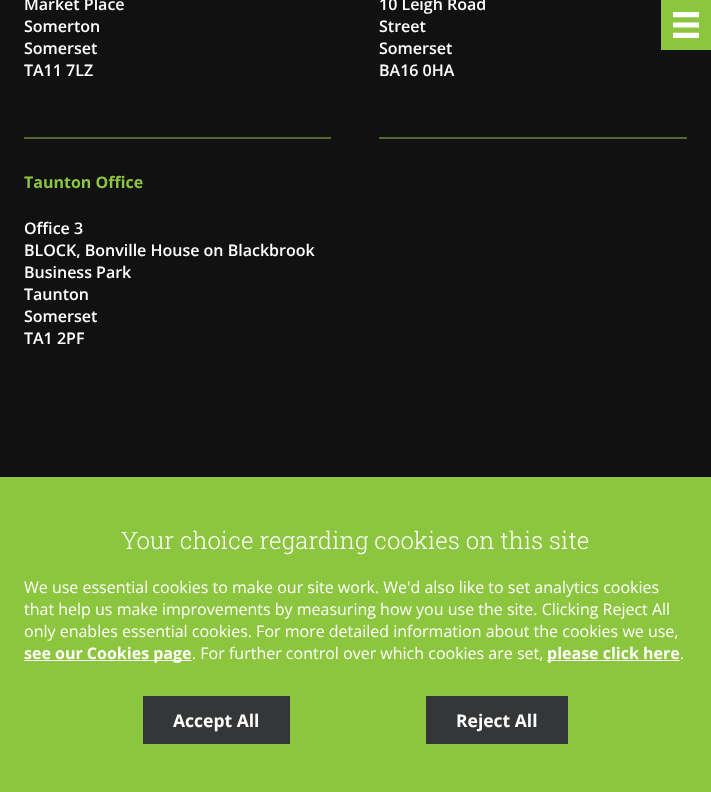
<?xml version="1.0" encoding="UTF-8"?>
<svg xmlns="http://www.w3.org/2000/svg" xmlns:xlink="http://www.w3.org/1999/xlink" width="711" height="792">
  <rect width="100%" height="100%" fill="#111111" />
  <rect x="24" y="137" width="307" height="2" fill="#4f6c28" />
  <rect x="379" y="137" width="308" height="2" fill="#4f6c28" />
  <rect x="661" width="50" height="50" fill="#8cc63f" />
  <image x="673" y="12" width="26" height="26" xlink:href="image1.png" />
  <rect y="477" width="711" height="315" fill="#8cc63f" />
  <rect x="24" y="660" width="168" height="1" fill="#ffffff" />
  <rect x="547" y="660" width="133" height="1" fill="#ffffff" />
  <rect x="143" y="696" width="147" height="48" fill="#353637" />
  <rect x="426" y="696" width="142" height="48" fill="#353637" />
  <text x="24" y="10" style="font-family: Open Sans; font-size: 16px; font-weight: 600; fill: #ffffff">Market Place</text>
  <text x="24" y="32" style="font-family: Open Sans; font-size: 16px; font-weight: 600; fill: #ffffff">Somerton</text>
  <text x="24" y="54" style="font-family: Open Sans; font-size: 16px; font-weight: 600; fill: #ffffff">Somerset</text>
  <text x="24" y="76" style="font-family: Open Sans; font-size: 16px; font-weight: 600; fill: #ffffff">TA11 7LZ</text>
  <text x="379" y="10" style="font-family: Open Sans; font-size: 16px; font-weight: 600; fill: #ffffff">10 Leigh Road</text>
  <text x="379" y="32" style="font-family: Open Sans; font-size: 16px; font-weight: 600; fill: #ffffff">Street</text>
  <text x="379" y="54" style="font-family: Open Sans; font-size: 16px; font-weight: 600; fill: #ffffff">Somerset</text>
  <text x="379" y="76" style="font-family: Open Sans; font-size: 16px; font-weight: 600; fill: #ffffff">BA16 0HA</text>
  <text x="24" y="188" style="font-family: Open Sans; font-size: 16px; font-weight: bold; fill: #8cc63f">Taunton Office</text>
  <text x="24" y="234" style="font-family: Open Sans; font-size: 16px; font-weight: 600; fill: #ffffff">Office 3</text>
  <text x="24" y="256" style="font-family: Open Sans; font-size: 16px; font-weight: 600; fill: #ffffff">BLOCK, Bonville House on Blackbrook</text>
  <text x="24" y="278" style="font-family: Open Sans; font-size: 16px; font-weight: 600; fill: #ffffff">Business Park</text>
  <text x="24" y="300" style="font-family: Open Sans; font-size: 16px; font-weight: 600; fill: #ffffff">Taunton</text>
  <text x="24" y="322" style="font-family: Open Sans; font-size: 16px; font-weight: 600; fill: #ffffff">Somerset</text>
  <text x="24" y="344" style="font-family: Open Sans; font-size: 16px; font-weight: 600; fill: #ffffff">TA1 2PF</text>
  <text x="121" y="549" style="font-family: Roboto Slab; font-size: 24px; font-weight: 300; fill: #ffffff">Your choice regarding cookies on this site</text>
  <text x="24" y="593" style="font-family: Open Sans; font-size: 16px; fill: #ffffff">We use essential cookies to make our site work. We'd also like to set analytics cookies</text>
  <text x="24" y="615" style="font-family: Open Sans; font-size: 16px; fill: #ffffff">that help us make improvements by measuring how you use the site. Clicking Reject All</text>
  <text x="24" y="637" style="font-family: Open Sans; font-size: 16px; fill: #ffffff">only enables essential cookies. For more detailed information about the cookies we use,</text>
  <text x="24" y="659" style="font-family: Open Sans; font-size: 16px; font-weight: bold; fill: #ffffff">see our Cookies page</text>
  <text x="192" y="659" style="font-family: Open Sans; font-size: 16px; fill: #ffffff">. For further control over which cookies are set,</text>
  <text x="547" y="659" style="font-family: Open Sans; font-size: 16px; font-weight: bold; fill: #ffffff">please click here</text>
  <text x="680" y="659" style="font-family: Open Sans; font-size: 16px; fill: #ffffff">.</text>
  <text x="173" y="727" style="font-family: Open Sans; font-size: 17.5px; font-weight: bold; fill: #ffffff">Accept All</text>
  <text x="456" y="727" style="font-family: Open Sans; font-size: 17.5px; font-weight: bold; fill: #ffffff">Reject All</text>
</svg>
